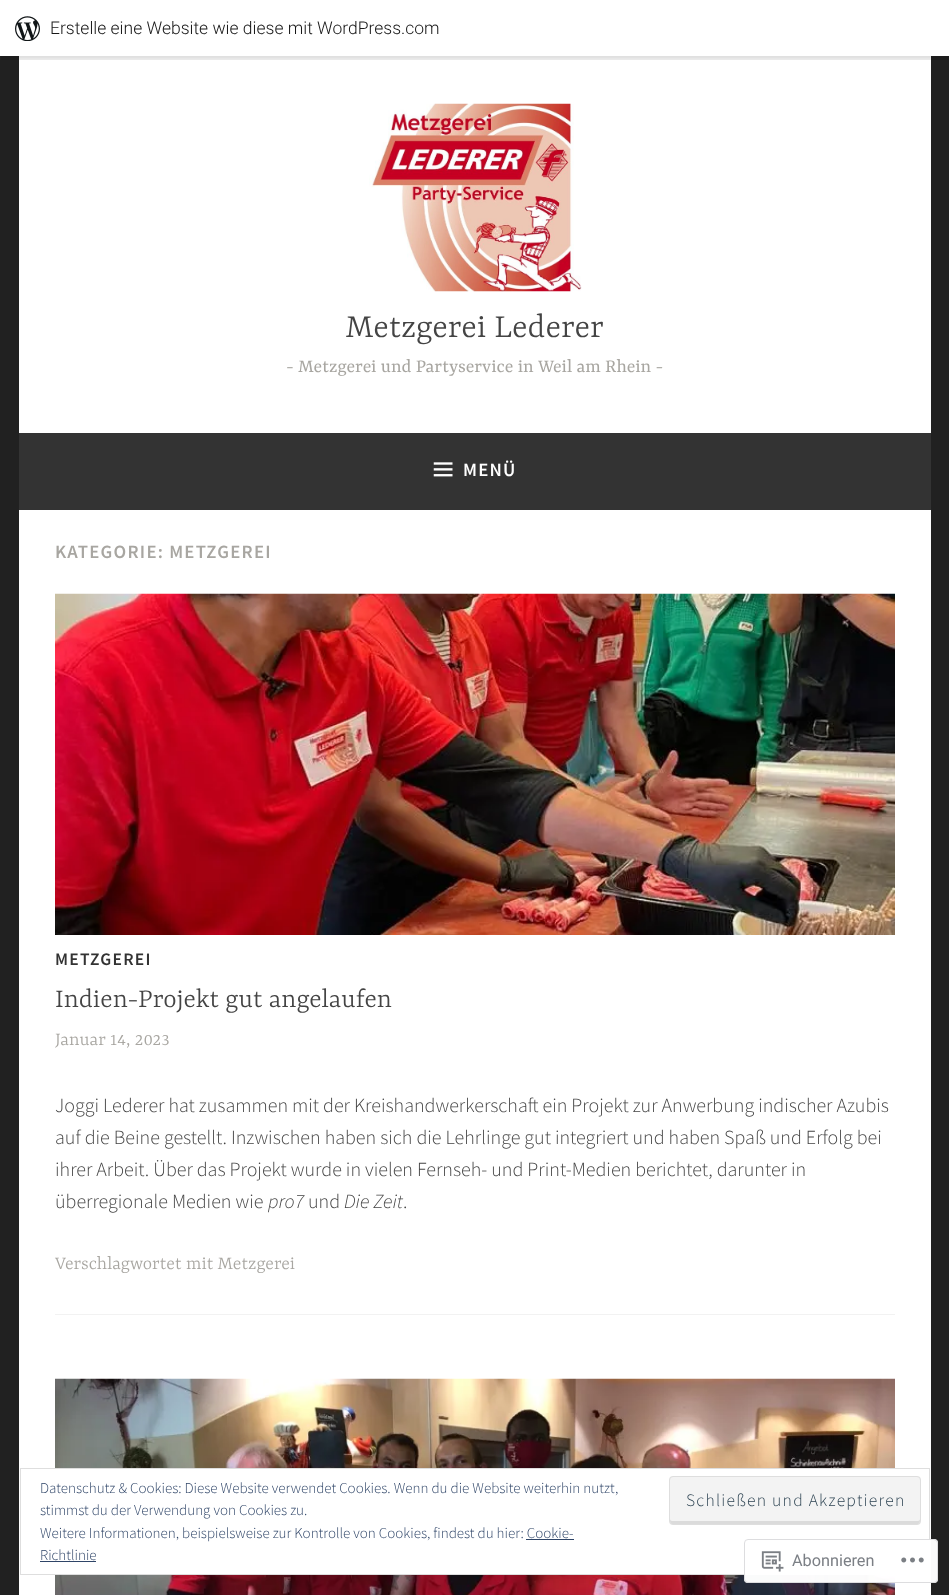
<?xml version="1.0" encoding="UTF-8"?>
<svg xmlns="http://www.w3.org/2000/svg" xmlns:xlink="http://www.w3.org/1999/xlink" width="949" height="1595">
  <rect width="100%" height="100%" fill="#212121" />
  <rect x="19" y="56" width="912" height="377" fill="#ffffff" />
  <rect y="1" width="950" height="57" fill="#000000" fill-opacity="0.05" filter="blur(1px)" />
  <path d="M 1 56 v 4 h 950 v -56 h -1 v 52 z" fill="#000000" fill-opacity="0.08" />
  <rect width="949" height="56" fill="#ffffff" />
  <image x="15" y="16" width="25" height="25" xlink:href="image1.png" />
  <image x="369" y="103" width="213" height="189" xlink:href="image2.png" />
  <rect x="19" y="433" width="912" height="77" fill="#333333" />
  <image x="433" y="462" width="20" height="15" xlink:href="image3.png" />
  <rect x="19" y="510" width="912" height="1085" fill="#ffffff" />
  <image x="55" y="593" width="840" height="342" xlink:href="image4.png" />
  <rect x="55" y="1314" width="840" height="1" fill="#f2f2f2" />
  <image x="55" y="1378" width="840" height="217" xlink:href="image5.png" />
  <rect x="55" y="1469" width="840" height="105" fill="#ffffff" />
  <rect x="20.5" y="1468.5" width="909" height="106" fill="none" stroke="#dedede" />
  <rect x="669" y="1476" width="252" height="49" rx="4" fill="#f3f3f3" />
  <path d="M 670 1519 c 0 2 0 5 2 5 h 246 c 2 0 2 -3 2 -5 c 0 1 -1 2 -2 2 h -246 c -1 0 -2 -1 -2 -2 z" fill="#dbdbdb" />
  <rect x="669.5" y="1476.5" width="251" height="48" rx="3.5" fill="none" stroke="#dedede" />
  <rect x="526" y="1539" width="48" height="1" fill="#2e4467" />
  <rect x="40" y="1561" width="56" height="1" fill="#2e4467" />
  <rect x="744" y="1539" width="194" height="44" rx="4" fill="#ffffff" fill-opacity="0.98" />
  <rect x="744.5" y="1539.5" width="193" height="43" rx="3.5" fill="none" stroke="#dcdcde" stroke-opacity="0.98" />
  <image x="761" y="1551" width="23" height="21" xlink:href="image6.png" />
  <image x="901" y="1557" width="23" height="6" xlink:href="image7.png" />
  <text x="50" y="34" style="font-family: Roboto; font-size: 17.5px; font-weight: 300; fill: #171717">Erstelle eine Website wie diese mit WordPress.com</text>
  <text x="346" y="337" style="font-family: Yrsa; font-size: 36.25px; font-weight: 300; fill: #444444">Metzgerei Lederer</text>
  <text x="286" y="372" style="font-family: Yrsa; font-size: 20px; fill: #a8a6a1">- Metzgerei und Partyservice in Weil am Rhein -</text>
  <text x="463" y="476" style="font-family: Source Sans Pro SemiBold; font-size: 18.75px; font-weight: 600; letter-spacing: 1.25px; fill: #ffffff">MENÜ</text>
  <text x="55" y="558" style="font-family: Source Sans Pro SemiBold; font-size: 18.75px; font-weight: 600; letter-spacing: 1.25px; fill: #a8a6a1">KATEGORIE: METZGEREI</text>
  <text x="55" y="965" style="font-family: Source Sans Pro SemiBold; font-size: 17.5px; font-weight: 600; letter-spacing: 1.25px; fill: #333333">METZGEREI</text>
  <text x="55" y="1007" style="font-family: Yrsa; font-size: 28.75px; font-weight: 300; fill: #444444">Indien-Projekt gut angelaufen</text>
  <text x="55" y="1045" style="font-family: Yrsa; font-size: 20px; font-weight: 300; fill: #a8a6a1">Januar 14, 2023</text>
  <text x="55" y="1112" style="font-family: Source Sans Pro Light; font-size: 20px; font-weight: 300; fill: #444444">Joggi Lederer hat zusammen mit der Kreishandwerkerschaft ein Projekt zur Anwerbung indischer Azubis</text>
  <text x="55" y="1144" style="font-family: Source Sans Pro Light; font-size: 20px; font-weight: 300; fill: #444444">auf die Beine gestellt. Inzwischen haben sich die Lehrlinge gut integriert und haben Spaß und Erfolg bei</text>
  <text x="55" y="1176" style="font-family: Source Sans Pro Light; font-size: 20px; font-weight: 300; fill: #444444">ihrer Arbeit. Über das Projekt wurde in vielen Fernseh- und Print-Medien berichtet, darunter in</text>
  <text x="55" y="1208" style="font-family: Source Sans Pro Light; font-size: 20px; font-weight: 300; fill: #444444">überregionale Medien wie</text>
  <text x="268" y="1208" style="font-family: Source Sans Pro Light; font-size: 20px; font-weight: 300; font-style: italic; fill: #444444">pro7</text>
  <text x="308" y="1208" style="font-family: Source Sans Pro Light; font-size: 20px; font-weight: 300; fill: #444444">und</text>
  <text x="344" y="1208" style="font-family: Source Sans Pro Light; font-size: 20px; font-weight: 300; font-style: italic; fill: #444444">Die Zeit</text>
  <text x="403" y="1208" style="font-family: Source Sans Pro Light; font-size: 20px; font-weight: 300; fill: #444444">.</text>
  <text x="55" y="1269" style="font-family: Yrsa; font-size: 20px; font-weight: 300; fill: #a8a6a1">Verschlagwortet mit Metzgerei</text>
  <text x="40" y="1493" style="font-family: Source Sans Pro Light; font-size: 15px; font-weight: 300; fill: #2e4467">Datenschutz &amp; Cookies: Diese Website verwendet Cookies. Wenn du die Website weiterhin nutzt,</text>
  <text x="686" y="1506" style="font-family: Source Sans Pro Light; font-size: 17.5px; font-weight: 300; letter-spacing: 1.25px; fill: #2e4453">Schließen und Akzeptieren</text>
  <text x="40" y="1515" style="font-family: Source Sans Pro Light; font-size: 15px; font-weight: 300; fill: #2e4467">stimmst du der Verwendung von Cookies zu.</text>
  <text x="40" y="1538" style="font-family: Source Sans Pro Light; font-size: 15px; font-weight: 300; fill: #2e4467">Weitere Informationen, beispielsweise zur Kontrolle von Cookies, findest du hier: Cookie-</text>
  <text x="40" y="1560" style="font-family: Source Sans Pro Light; font-size: 15px; font-weight: 300; fill: #2e4467">Richtlinie</text>
  <text x="792" y="1566" style="font-family: Roboto; font-size: 16.25px; fill: #7b7f85">Abonnieren</text>
</svg>
